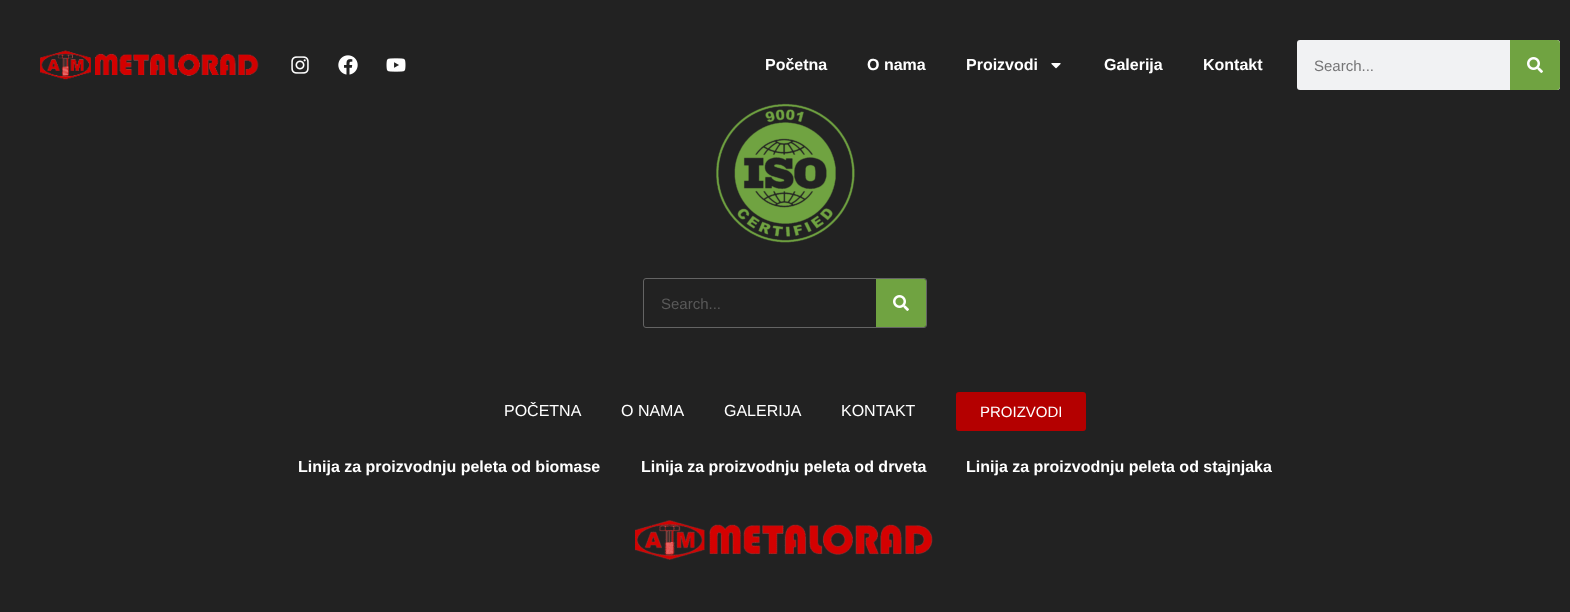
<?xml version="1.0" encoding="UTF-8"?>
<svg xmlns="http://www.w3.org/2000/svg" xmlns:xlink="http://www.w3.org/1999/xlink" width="1570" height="612">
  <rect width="100%" height="100%" fill="#222222" />
  <image x="40" y="50" width="219" height="30" xlink:href="image1.png" />
  <image x="291" y="56" width="18" height="18" xlink:href="image2.png" />
  <image x="338" y="55" width="20" height="20" xlink:href="image3.png" />
  <image x="386" y="58" width="20" height="14" xlink:href="image4.png" />
  <image x="1051" y="63" width="10" height="6" xlink:href="image5.png" />
  <rect x="1297" y="40" width="263" height="50" rx="3" fill="#f1f2f3" />
  <path d="M 1510 40 h 47 c 1.5 0 3 1.5 3 3 v 44 c 0 1.5 -1.5 3 -3 3 h -47 z" fill="#70a341" />
  <image x="1527" y="57" width="16" height="16" xlink:href="image6.png" />
  <image x="716" y="103" width="139" height="140" xlink:href="image7.png" />
  <rect x="643.5" y="278.5" width="283" height="49" rx="2.5" fill="none" stroke="#646464" />
  <path d="M 876 279 h 48 c 1 0 2 1 2 2 v 44 c 0 1 -1 2 -2 2 h -48 z" fill="#70a341" />
  <image x="893" y="295" width="16" height="16" xlink:href="image6.png" />
  <rect x="956" y="392" width="130" height="39" rx="3" fill="#b40000" />
  <image x="635" y="520" width="298" height="40" xlink:href="image8.png" />
  <text x="765" y="70" style="font-family: Liberation Sans; font-size: 16px; font-weight: bold; fill: #ffffff">Početna</text>
  <text x="867" y="70" style="font-family: Liberation Sans; font-size: 16px; font-weight: bold; fill: #ffffff">O nama</text>
  <text x="966" y="70" style="font-family: Liberation Sans; font-size: 16px; font-weight: bold; fill: #ffffff">Proizvodi</text>
  <text x="1104" y="70" style="font-family: Liberation Sans; font-size: 16px; font-weight: bold; fill: #ffffff">Galerija</text>
  <text x="1203" y="70" style="font-family: Liberation Sans; font-size: 16px; font-weight: bold; fill: #ffffff">Kontakt</text>
  <text x="1314" y="71" style="font-family: Liberation Sans; font-size: 15px; fill: #757576">Search...</text>
  <text x="661" y="309" style="font-family: Liberation Sans; font-size: 15px; fill: #595959">Search...</text>
  <text x="504" y="416" style="font-family: Liberation Sans; font-size: 16px; fill: #ffffff">POČETNA</text>
  <text x="621" y="416" style="font-family: Liberation Sans; font-size: 16px; fill: #ffffff">O NAMA</text>
  <text x="724" y="416" style="font-family: Liberation Sans; font-size: 16px; fill: #ffffff">GALERIJA</text>
  <text x="841" y="416" style="font-family: Liberation Sans; font-size: 16px; fill: #ffffff">KONTAKT</text>
  <text x="980" y="417" style="font-family: Liberation Sans; font-size: 15px; fill: #ffffff">PROIZVODI</text>
  <text x="298" y="472" style="font-family: Liberation Sans; font-size: 16px; font-weight: bold; fill: #ffffff">Linija za proizvodnju peleta od biomase</text>
  <text x="641" y="472" style="font-family: Liberation Sans; font-size: 16px; font-weight: bold; fill: #ffffff">Linija za proizvodnju peleta od drveta</text>
  <text x="966" y="472" style="font-family: Liberation Sans; font-size: 16px; font-weight: bold; fill: #ffffff">Linija za proizvodnju peleta od stajnjaka</text>
</svg>
